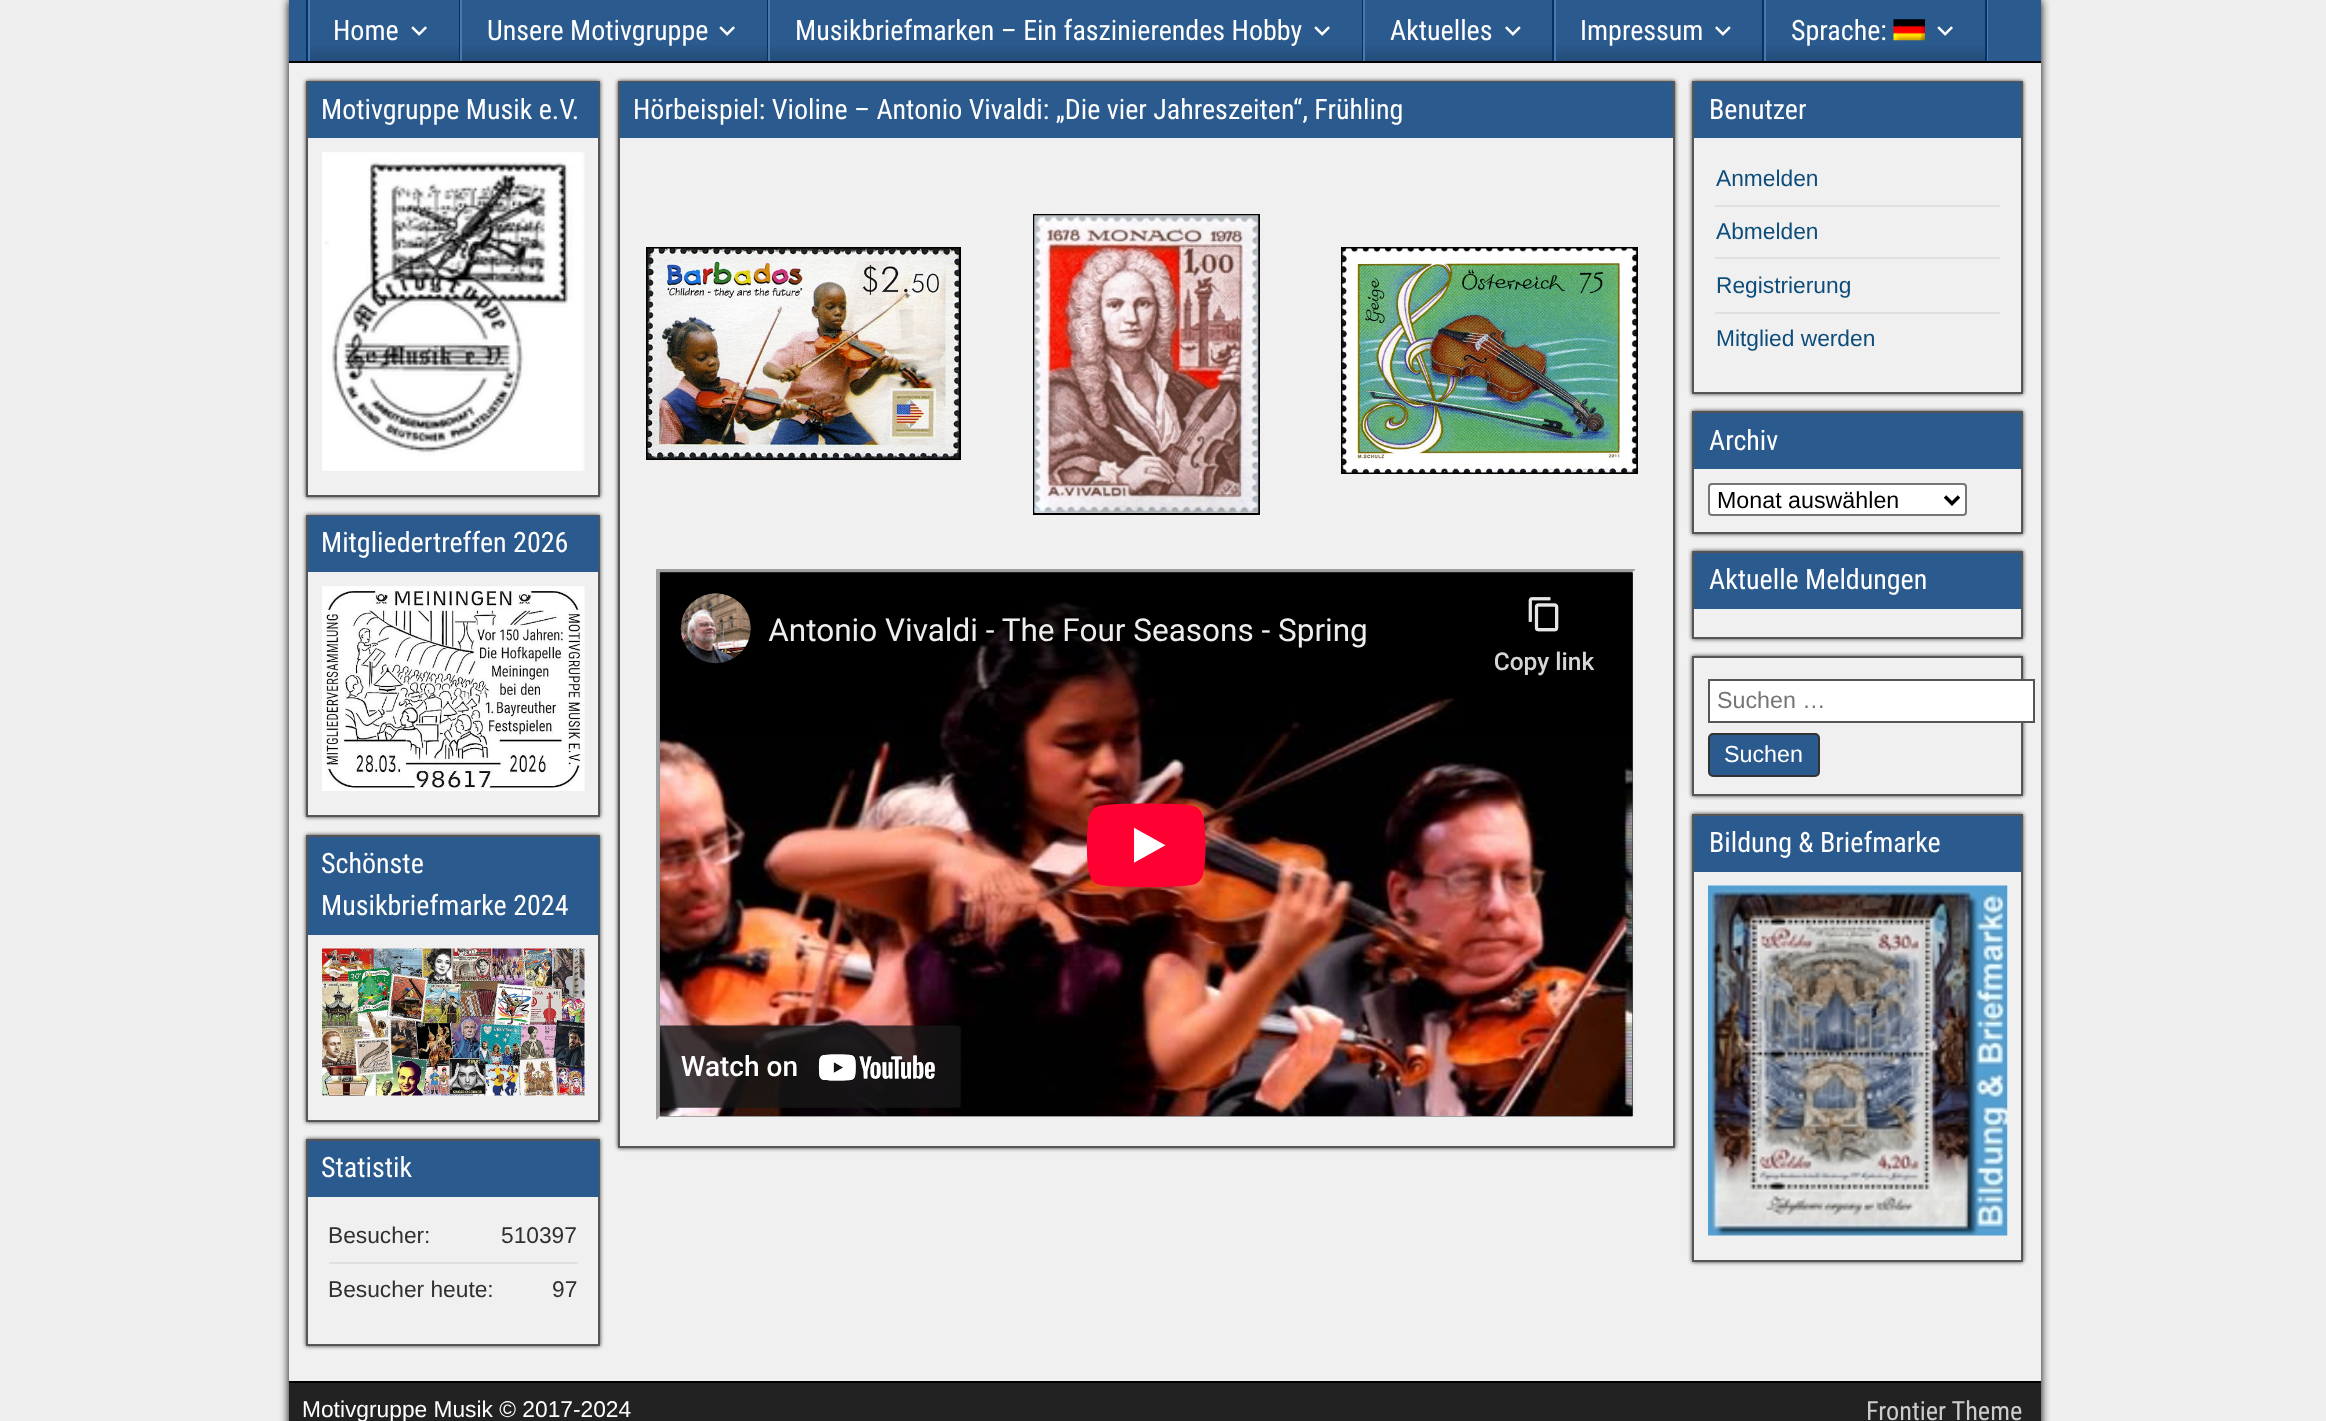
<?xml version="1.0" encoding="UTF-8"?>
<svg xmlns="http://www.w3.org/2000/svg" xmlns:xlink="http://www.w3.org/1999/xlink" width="2326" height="1421">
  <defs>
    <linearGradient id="g1" gradientUnits="userSpaceOnUse" x1="384" y1="0" x2="384" y2="61"><stop offset="0.7" stop-color="#2a5a8e" /><stop offset="1" stop-color="#244d79" /></linearGradient>
    <linearGradient id="g2" gradientUnits="userSpaceOnUse" x1="614" y1="0" x2="614" y2="61"><stop offset="0.7" stop-color="#000000" stop-opacity="0" /><stop offset="1" stop-color="#000000" stop-opacity="0.15" /></linearGradient>
    <linearGradient id="g3" gradientUnits="userSpaceOnUse" x1="1066" y1="0" x2="1066" y2="61"><stop offset="0.7" stop-color="#000000" stop-opacity="0" /><stop offset="1" stop-color="#000000" stop-opacity="0.15" /></linearGradient>
    <linearGradient id="g4" gradientUnits="userSpaceOnUse" x1="1459" y1="0" x2="1459" y2="61"><stop offset="0.7" stop-color="#000000" stop-opacity="0" /><stop offset="1" stop-color="#000000" stop-opacity="0.15" /></linearGradient>
    <linearGradient id="g5" gradientUnits="userSpaceOnUse" x1="1659" y1="0" x2="1659" y2="61"><stop offset="0.7" stop-color="#2a5a8e" /><stop offset="1" stop-color="#244d79" /></linearGradient>
    <linearGradient id="g6" gradientUnits="userSpaceOnUse" x1="1875" y1="0" x2="1875" y2="61"><stop offset="0.7" stop-color="#2a5a8e" /><stop offset="1" stop-color="#244d79" /></linearGradient>
  </defs>
  <rect width="100%" height="100%" fill="#efefef" />
  <rect x="289" width="1752" height="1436" fill="#000000" filter="blur(5px)" />
  <rect x="289" width="1752" height="61" fill="#2a5a8e" />
  <rect x="289" y="61" width="1752" height="2" fill="#000000" />
  <rect x="1987" width="1" height="61" fill="#4878ac" />
  <rect x="306" width="2" height="61" fill="#023266" />
  <rect x="310" y="45" width="149" height="16" fill="url(#g1)" />
  <rect x="459" width="1" height="61" fill="#023266" />
  <rect x="308" width="2" height="61" fill="#4878ac" />
  <image x="411" y="26" width="16" height="10" xlink:href="image1.png" />
  <rect x="462" y="45" width="305" height="16" fill="url(#g2)" />
  <rect x="767" width="1" height="61" fill="#023266" />
  <rect x="460" width="2" height="61" fill="#4878ac" />
  <image x="719" y="26" width="16" height="10" xlink:href="image1.png" />
  <rect x="770" y="45" width="592" height="16" fill="url(#g3)" />
  <rect x="1362" width="1" height="61" fill="#023266" />
  <rect x="768" width="2" height="61" fill="#4878ac" />
  <image x="1314" y="26" width="16" height="10" xlink:href="image1.png" />
  <rect x="1365" y="45" width="187" height="16" fill="url(#g4)" />
  <rect x="1552" width="2" height="61" fill="#023266" />
  <rect x="1363" width="2" height="61" fill="#4878ac" />
  <image x="1505" y="26" width="16" height="10" xlink:href="image2.png" />
  <rect x="1556" y="45" width="206" height="16" fill="url(#g5)" />
  <rect x="1762" width="2" height="61" fill="#023266" />
  <rect x="1554" width="2" height="61" fill="#4878ac" />
  <image x="1715" y="26" width="16" height="10" xlink:href="image2.png" />
  <rect x="1766" y="45" width="219" height="16" fill="url(#g6)" />
  <rect x="1985" width="2" height="61" fill="#023266" />
  <rect x="1764" width="2" height="61" fill="#4878ac" />
  <image x="1893" y="19" width="32" height="22" xlink:href="image3.png" />
  <image x="1937" y="26" width="16" height="10" xlink:href="image1.png" />
  <rect x="289" y="63" width="1752" height="1318" fill="#f0f0f0" />
  <rect x="306" y="81" width="294" height="416" fill="#333333" filter="blur(2px)" />
  <rect x="308" y="138" width="290" height="357" fill="#f0f0f0" />
  <rect x="307" y="82" width="292" height="414" fill="none" stroke="#555555" stroke-width="2" />
  <rect x="308" y="82" width="291" height="56" fill="#2a5a8e" />
  <image x="322" y="152" width="263" height="319" xlink:href="image4.png" />
  <rect x="306" y="515" width="294" height="302" fill="#333333" filter="blur(2px)" />
  <rect x="308" y="572" width="290" height="243" fill="#f0f0f0" />
  <rect x="307" y="516" width="292" height="300" fill="none" stroke="#555555" stroke-width="2" />
  <rect x="308" y="516" width="291" height="56" fill="#2a5a8e" />
  <image x="322" y="586" width="263" height="205" xlink:href="image5.png" />
  <rect x="306" y="835" width="294" height="287" fill="#333333" filter="blur(2px)" />
  <rect x="308" y="935" width="290" height="185" fill="#f0f0f0" />
  <rect x="307" y="836" width="292" height="285" fill="none" stroke="#555555" stroke-width="2" />
  <rect x="308" y="837" width="291" height="98" fill="#2a5a8e" />
  <image x="322" y="948" width="263" height="148" xlink:href="image6.png" />
  <rect x="306" y="1139" width="294" height="207" fill="#333333" filter="blur(2px)" />
  <rect x="308" y="1197" width="290" height="147" fill="#f0f0f0" />
  <rect x="307" y="1140" width="292" height="205" fill="none" stroke="#555555" stroke-width="2" />
  <rect x="308" y="1141" width="291" height="56" fill="#2a5a8e" />
  <rect x="329" y="1262" width="249" height="2" fill="#e0e0e0" />
  <rect x="618" y="81" width="1057" height="1067" fill="#333333" filter="blur(2px)" />
  <rect x="620" y="138" width="1053" height="1008" fill="#f0f0f0" />
  <rect x="619" y="82" width="1055" height="1065" fill="none" stroke="#555555" stroke-width="2" />
  <rect x="620" y="82" width="1053" height="56" fill="#2a5a8e" />
  <rect x="647" y="248" width="313" height="211" fill="none" stroke="#000000" stroke-width="2" />
  <image x="647" y="248" width="312" height="211" xlink:href="image7.png" />
  <rect x="1034" y="215" width="225" height="299" fill="none" stroke="#000000" stroke-width="2" />
  <image x="1034" y="215" width="225" height="298" xlink:href="image8.png" />
  <rect x="1342" y="248" width="295" height="225" fill="none" stroke="#000000" stroke-width="2" />
  <image x="1342" y="248" width="295" height="225" xlink:href="image9.png" />
  <path d="M 656 569 h 980 l -3 3 h -973 z" fill="#9f9f9f" />
  <path d="M 656 1120 v -551 l 4 3 v 544 z" fill="#9f9f9f" />
  <image x="659" y="572" width="974" height="545" xlink:href="image10.png" />
  <path d="M 1636 569 v 551 l -3 -4 v -544 z" fill="#eeeeee" />
  <rect x="1692" y="81" width="331" height="313" fill="#333333" filter="blur(2px)" />
  <rect x="1694" y="138" width="327" height="254" fill="#f0f0f0" />
  <rect x="1693" y="82" width="329" height="311" fill="none" stroke="#555555" stroke-width="2" />
  <rect x="1694" y="82" width="327" height="56" fill="#2a5a8e" />
  <rect x="1715" y="205" width="285" height="2" fill="#e0e0e0" />
  <rect x="1715" y="257" width="285" height="2" fill="#e0e0e0" />
  <rect x="1715" y="312" width="285" height="2" fill="#e0e0e0" />
  <rect x="1692" y="411" width="331" height="123" fill="#333333" filter="blur(2px)" />
  <rect x="1694" y="469" width="327" height="63" fill="#f0f0f0" />
  <rect x="1693" y="412" width="329" height="121" fill="none" stroke="#555555" stroke-width="2" />
  <rect x="1694" y="413" width="327" height="56" fill="#2a5a8e" />
  <rect x="1709" y="484" width="257" height="31" rx="3" fill="#ffffff" stroke="#767676" stroke-width="2" />
  <path d="M 1945 496.5 l 7 7 l 7 -7" fill="none" stroke="#000000" stroke-width="3.5" />
  <rect x="1692" y="551" width="331" height="88" fill="#333333" filter="blur(2px)" />
  <rect x="1694" y="609" width="327" height="28" fill="#f0f0f0" />
  <rect x="1693" y="552" width="329" height="86" fill="none" stroke="#555555" stroke-width="2" />
  <rect x="1694" y="553" width="327" height="56" fill="#2a5a8e" />
  <rect x="1692" y="656" width="331" height="140" fill="#333333" filter="blur(2px)" />
  <rect x="1693" y="657" width="329" height="138" fill="#f0f0f0" stroke="#555555" stroke-width="2" />
  <rect x="1709" y="680" width="325" height="42" fill="#ffffff" stroke="#555555" stroke-width="2" />
  <rect x="1709" y="734" width="110" height="42" rx="4" fill="#2a5a8e" stroke="#333333" stroke-width="2" />
  <rect x="1692" y="814" width="331" height="448" fill="#333333" filter="blur(2px)" />
  <rect x="1694" y="872" width="327" height="388" fill="#f0f0f0" />
  <rect x="1693" y="815" width="329" height="446" fill="none" stroke="#555555" stroke-width="2" />
  <rect x="1694" y="816" width="327" height="56" fill="#2a5a8e" />
  <image x="1708" y="885" width="300" height="351" xlink:href="image11.png" />
  <rect x="289" y="1383" width="1752" height="38" fill="#222222" />
  <rect x="289" y="1381" width="1752" height="2" fill="#000000" />
  <text x="333" y="40" style="font-family: Roboto Condensed; font-size: 28px; fill: #ffffff">Home</text>
  <text x="487" y="40" style="font-family: Roboto Condensed; font-size: 28px; fill: #ffffff">Unsere Motivgruppe</text>
  <text x="795" y="40" style="font-family: Roboto Condensed; font-size: 28px; fill: #ffffff">Musikbriefmarken – Ein faszinierendes Hobby</text>
  <text x="1390" y="40" style="font-family: Roboto Condensed; font-size: 28px; fill: #ffffff">Aktuelles</text>
  <text x="1580" y="40" style="font-family: Roboto Condensed; font-size: 28px; fill: #ffffff">Impressum</text>
  <text x="1791" y="40" style="font-family: Roboto Condensed; font-size: 28px; fill: #ffffff">Sprache:</text>
  <text x="321" y="119" style="font-family: Roboto Condensed; font-size: 28px; fill: #ffffff">Motivgruppe Musik e.V.</text>
  <text x="321" y="552" style="font-family: Roboto Condensed; font-size: 28px; fill: #ffffff">Mitgliedertreffen 2026</text>
  <text x="321" y="873" style="font-family: Roboto Condensed; font-size: 28px; fill: #ffffff">Schönste</text>
  <text x="321" y="915" style="font-family: Roboto Condensed; font-size: 28px; fill: #ffffff">Musikbriefmarke 2024</text>
  <text x="321" y="1177" style="font-family: Roboto Condensed; font-size: 28px; fill: #ffffff">Statistik</text>
  <text x="328" y="1243" style="font-family: Liberation Sans; font-size: 22.75px; fill: #303030">Besucher:</text>
  <text x="501" y="1243" style="font-family: Liberation Sans; font-size: 22.75px; fill: #303030">510397</text>
  <text x="328" y="1297" style="font-family: Liberation Sans; font-size: 22.75px; fill: #303030">Besucher heute:</text>
  <text x="552" y="1297" style="font-family: Liberation Sans; font-size: 22.75px; fill: #303030">97</text>
  <text x="633" y="119" style="font-family: Roboto Condensed; font-size: 28px; fill: #ffffff">Hörbeispiel: Violine – Antonio Vivaldi: „Die vier Jahreszeiten“, Frühling</text>
  <text x="1709" y="119" style="font-family: Roboto Condensed; font-size: 28px; fill: #ffffff">Benutzer</text>
  <text x="1716" y="186" style="font-family: Liberation Sans; font-size: 22.75px; fill: #0e4d7a">Anmelden</text>
  <text x="1716" y="239" style="font-family: Liberation Sans; font-size: 22.75px; fill: #0e4d7a">Abmelden</text>
  <text x="1716" y="293" style="font-family: Liberation Sans; font-size: 22.75px; fill: #0e4d7a">Registrierung</text>
  <text x="1716" y="346" style="font-family: Liberation Sans; font-size: 22.75px; fill: #0e4d7a">Mitglied werden</text>
  <text x="1709" y="450" style="font-family: Roboto Condensed; font-size: 28px; fill: #ffffff">Archiv</text>
  <text x="1717" y="508" style="font-family: Liberation Sans; font-size: 23.25px; fill: #000000">Monat auswählen</text>
  <text x="1709" y="589" style="font-family: Roboto Condensed; font-size: 28px; fill: #ffffff">Aktuelle Meldungen</text>
  <text x="1717" y="708" style="font-family: Liberation Sans; font-size: 23.25px; fill: #757575">Suchen …</text>
  <text x="1724" y="762" style="font-family: Liberation Sans; font-size: 23.25px; fill: #ffffff">Suchen</text>
  <text x="1709" y="852" style="font-family: Roboto Condensed; font-size: 28px; fill: #ffffff">Bildung &amp; Briefmarke</text>
  <text x="302" y="1417" style="font-family: Liberation Sans; font-size: 22.75px; fill: #ffffff">Motivgruppe Musik © 2017-2024</text>
  <text x="1866" y="1420" style="font-family: Roboto Condensed; font-size: 26.25px; fill: #cccccc">Frontier Theme</text>
</svg>
